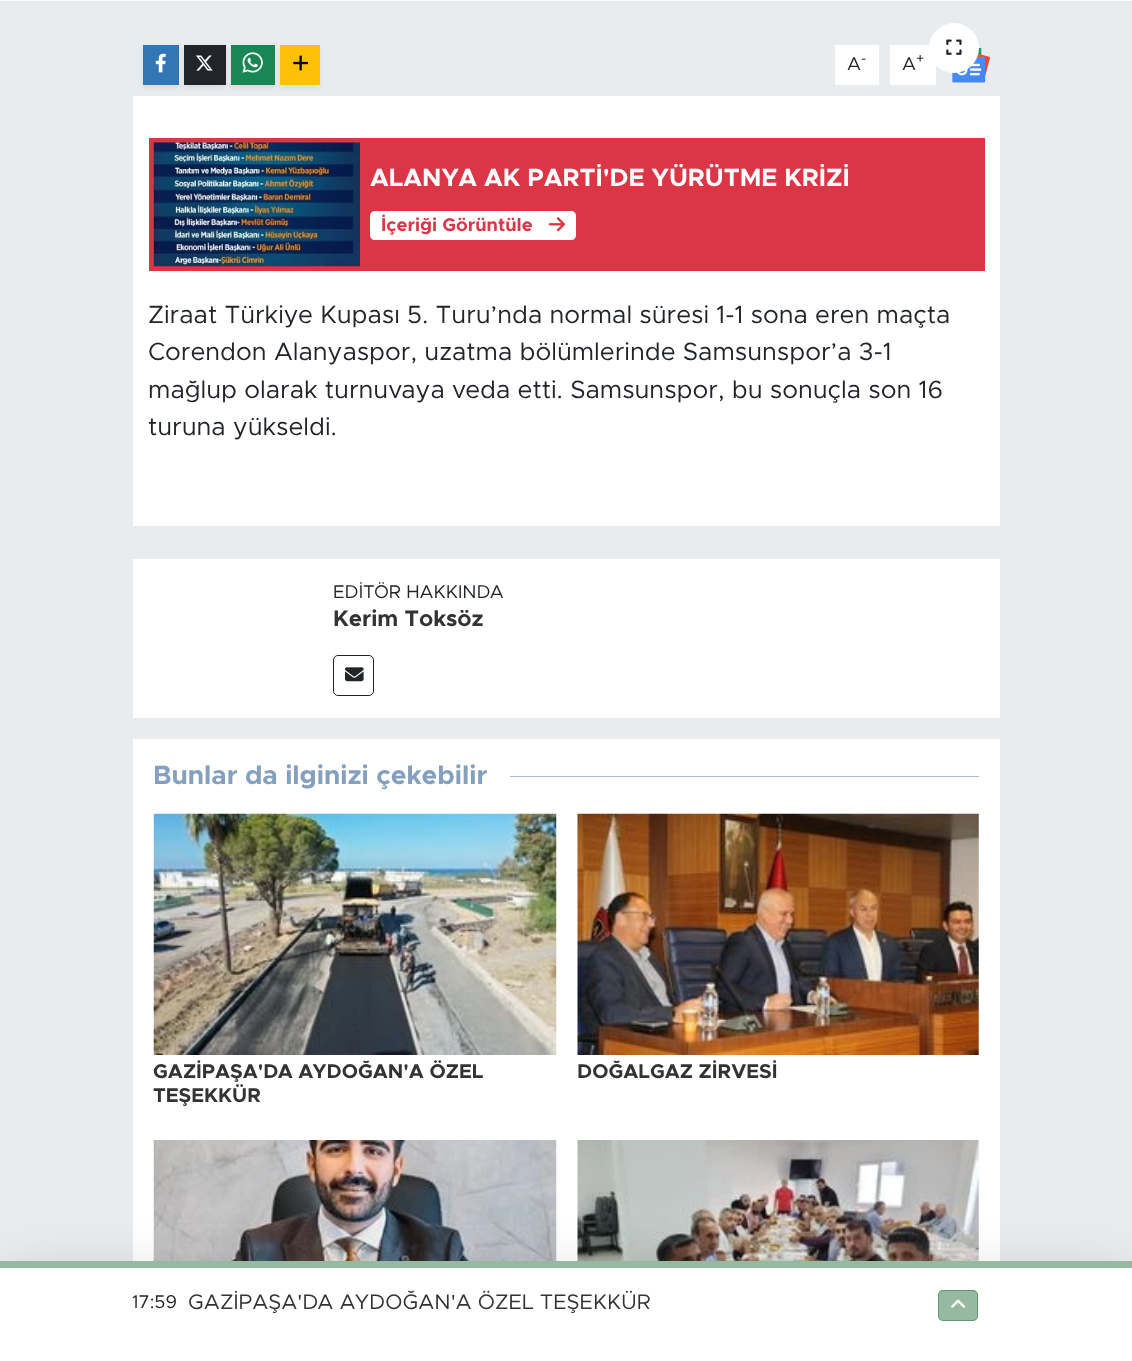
<?xml version="1.0" encoding="UTF-8"?>
<svg xmlns="http://www.w3.org/2000/svg" xmlns:xlink="http://www.w3.org/1999/xlink" width="1132" height="1361">
  <defs>
    <clipPath id="clip1"><rect x="370" y="164" width="599" height="31" /></clipPath>
  </defs>
  <rect width="100%" height="100%" fill="#e9ecef" />
  <rect width="1132" height="1" fill="#f8f9fa" />
  <rect x="143" y="48" width="36" height="40" fill="#000000" fill-opacity="0.07" filter="blur(2.5px)" />
  <rect x="143" y="45" width="36" height="40" fill="#3276b3" />
  <image x="155" y="53" width="11" height="20" xlink:href="image1.png" />
  <rect x="184" y="48" width="42" height="40" fill="#000000" fill-opacity="0.07" filter="blur(2.5px)" />
  <rect x="184" y="45" width="42" height="40" fill="#212529" />
  <image x="196" y="55" width="17" height="16" xlink:href="image2.png" />
  <rect x="231" y="48" width="44" height="40" fill="#000000" fill-opacity="0.07" filter="blur(2.5px)" />
  <rect x="231" y="45" width="44" height="40" fill="#198754" />
  <image x="242" y="52" width="21" height="21" xlink:href="image3.png" />
  <rect x="280" y="48" width="40" height="40" fill="#000000" fill-opacity="0.07" filter="blur(2.5px)" />
  <rect x="280" y="45" width="40" height="40" fill="#ffc107" />
  <image x="293" y="55" width="16" height="16" xlink:href="image4.png" />
  <rect x="835" y="45" width="44" height="40" fill="#ffffff" />
  <rect x="890" y="45" width="46" height="40" fill="#ffffff" />
  <image x="952" y="48" width="38" height="35" xlink:href="image5.png" />
  <circle cx="954" cy="48" r="25" fill="#ffffff" />
  <image x="946" y="39" width="16" height="16" xlink:href="image6.png" />
  <rect x="133" y="96" width="867" height="430" fill="#ffffff" />
  <rect x="149" y="138" width="836" height="133" fill="#dc3545" />
  <image x="153" y="142" width="207" height="125" xlink:href="image7.png" />
  <path d="M 375 211 h 164 v 29 h -164 c -3 0 -5 -2 -5 -5 v -19 c 0 -3 2 -5 5 -5 z" fill="#ffffff" />
  <path d="M 539 211 h 32 c 3 0 5 2 5 5 v 19 c 0 3 -2 5 -5 5 h -32 z" fill="#ffffff" />
  <image x="548" y="217" width="17" height="15" xlink:href="image8.png" />
  <rect x="133" y="559" width="867" height="159" fill="#ffffff" />
  <rect x="333.5" y="655.5" width="40" height="40" rx="4.5" fill="none" stroke="#212529" />
  <image x="345" y="667" width="19" height="15" xlink:href="image9.png" />
  <rect x="133" y="739" width="867" height="522" fill="#ffffff" />
  <rect x="510" y="776" width="469" height="1" fill="#aabdd1" />
  <image x="153" y="813" width="404" height="242" xlink:href="image10.png" />
  <image x="577" y="813" width="402" height="242" xlink:href="image11.png" />
  <image x="153" y="1140" width="404" height="121" xlink:href="image12.png" />
  <image x="577" y="1140" width="402" height="121" xlink:href="image13.png" />
  <rect y="1283" width="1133" height="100" fill="#000000" fill-opacity="0.18" filter="blur(32px)" />
  <rect y="1268" width="1132" height="93" fill="#ffffff" />
  <rect y="1261" width="1132" height="7" fill="#96baa0" />
  <rect x="938" y="1290" width="40" height="31" rx="5" fill="#96baa0" />
  <rect x="938.5" y="1290.5" width="39" height="30" rx="4.5" fill="none" stroke="#2d7541" stroke-opacity="0.5" />
  <image x="951" y="1299" width="15" height="9" xlink:href="image14.png" />
  <text x="847" y="70" style="font-family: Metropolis; font-size: 18.5px; fill: #212529">A</text>
  <text x="861" y="63" style="font-family: Metropolis; font-size: 14px; fill: #212529">-</text>
  <text x="902" y="70" style="font-family: Metropolis; font-size: 18.5px; fill: #212529">A</text>
  <text x="916" y="63" style="font-family: Metropolis; font-size: 14px; fill: #212529">+</text>
  <g clip-path="url(#clip1)">
    <text x="370" y="186" style="font-family: Metropolis; font-size: 25px; font-weight: bold; fill: #ffffff">ALANYA AK PARTİ'DE YÜRÜTME KRİZİ</text>
  </g>
  <text x="381" y="231" style="font-family: Metropolis; font-size: 18.5px; font-weight: bold; fill: #dc3545">İçeriği Görüntüle</text>
  <text x="148" y="323" style="font-family: Metropolis; font-size: 25px; fill: #212529">Ziraat Türkiye Kupası 5. Turu’nda normal süresi 1-1 sona eren maçta</text>
  <text x="148" y="360" style="font-family: Metropolis; font-size: 25px; fill: #212529">Corendon Alanyaspor, uzatma bölümlerinde Samsunspor’a 3-1</text>
  <text x="148" y="398" style="font-family: Metropolis; font-size: 25px; fill: #212529">mağlup olarak turnuvaya veda etti. Samsunspor, bu sonuçla son 16</text>
  <text x="148" y="435" style="font-family: Metropolis; font-size: 25px; fill: #212529">turuna yükseldi.</text>
  <text x="333" y="598" style="font-family: Metropolis; font-size: 18.5px; fill: #212529">EDİTÖR HAKKINDA</text>
  <text x="333" y="626" style="font-family: Metropolis; font-size: 22.5px; font-weight: bold; fill: #333333">Kerim Toksöz</text>
  <text x="153" y="784" style="font-family: Metropolis; font-size: 26.5px; font-weight: bold; fill: #85a0bd">Bunlar da ilginizi çekebilir</text>
  <text x="153" y="1078" style="font-family: Metropolis; font-size: 20px; font-weight: bold; fill: #333333">GAZİPAŞA'DA AYDOĞAN'A ÖZEL</text>
  <text x="153" y="1102" style="font-family: Metropolis; font-size: 20px; font-weight: bold; fill: #333333">TEŞEKKÜR</text>
  <text x="577" y="1078" style="font-family: Metropolis; font-size: 20px; font-weight: bold; fill: #333333">DOĞALGAZ ZİRVESİ</text>
  <text x="132" y="1308" style="font-family: Metropolis; font-size: 18.5px; fill: #212529">17:59</text>
  <text x="188" y="1309" style="font-family: Metropolis; font-size: 21.25px; fill: #333333">GAZİPAŞA'DA AYDOĞAN'A ÖZEL TEŞEKKÜR</text>
</svg>
